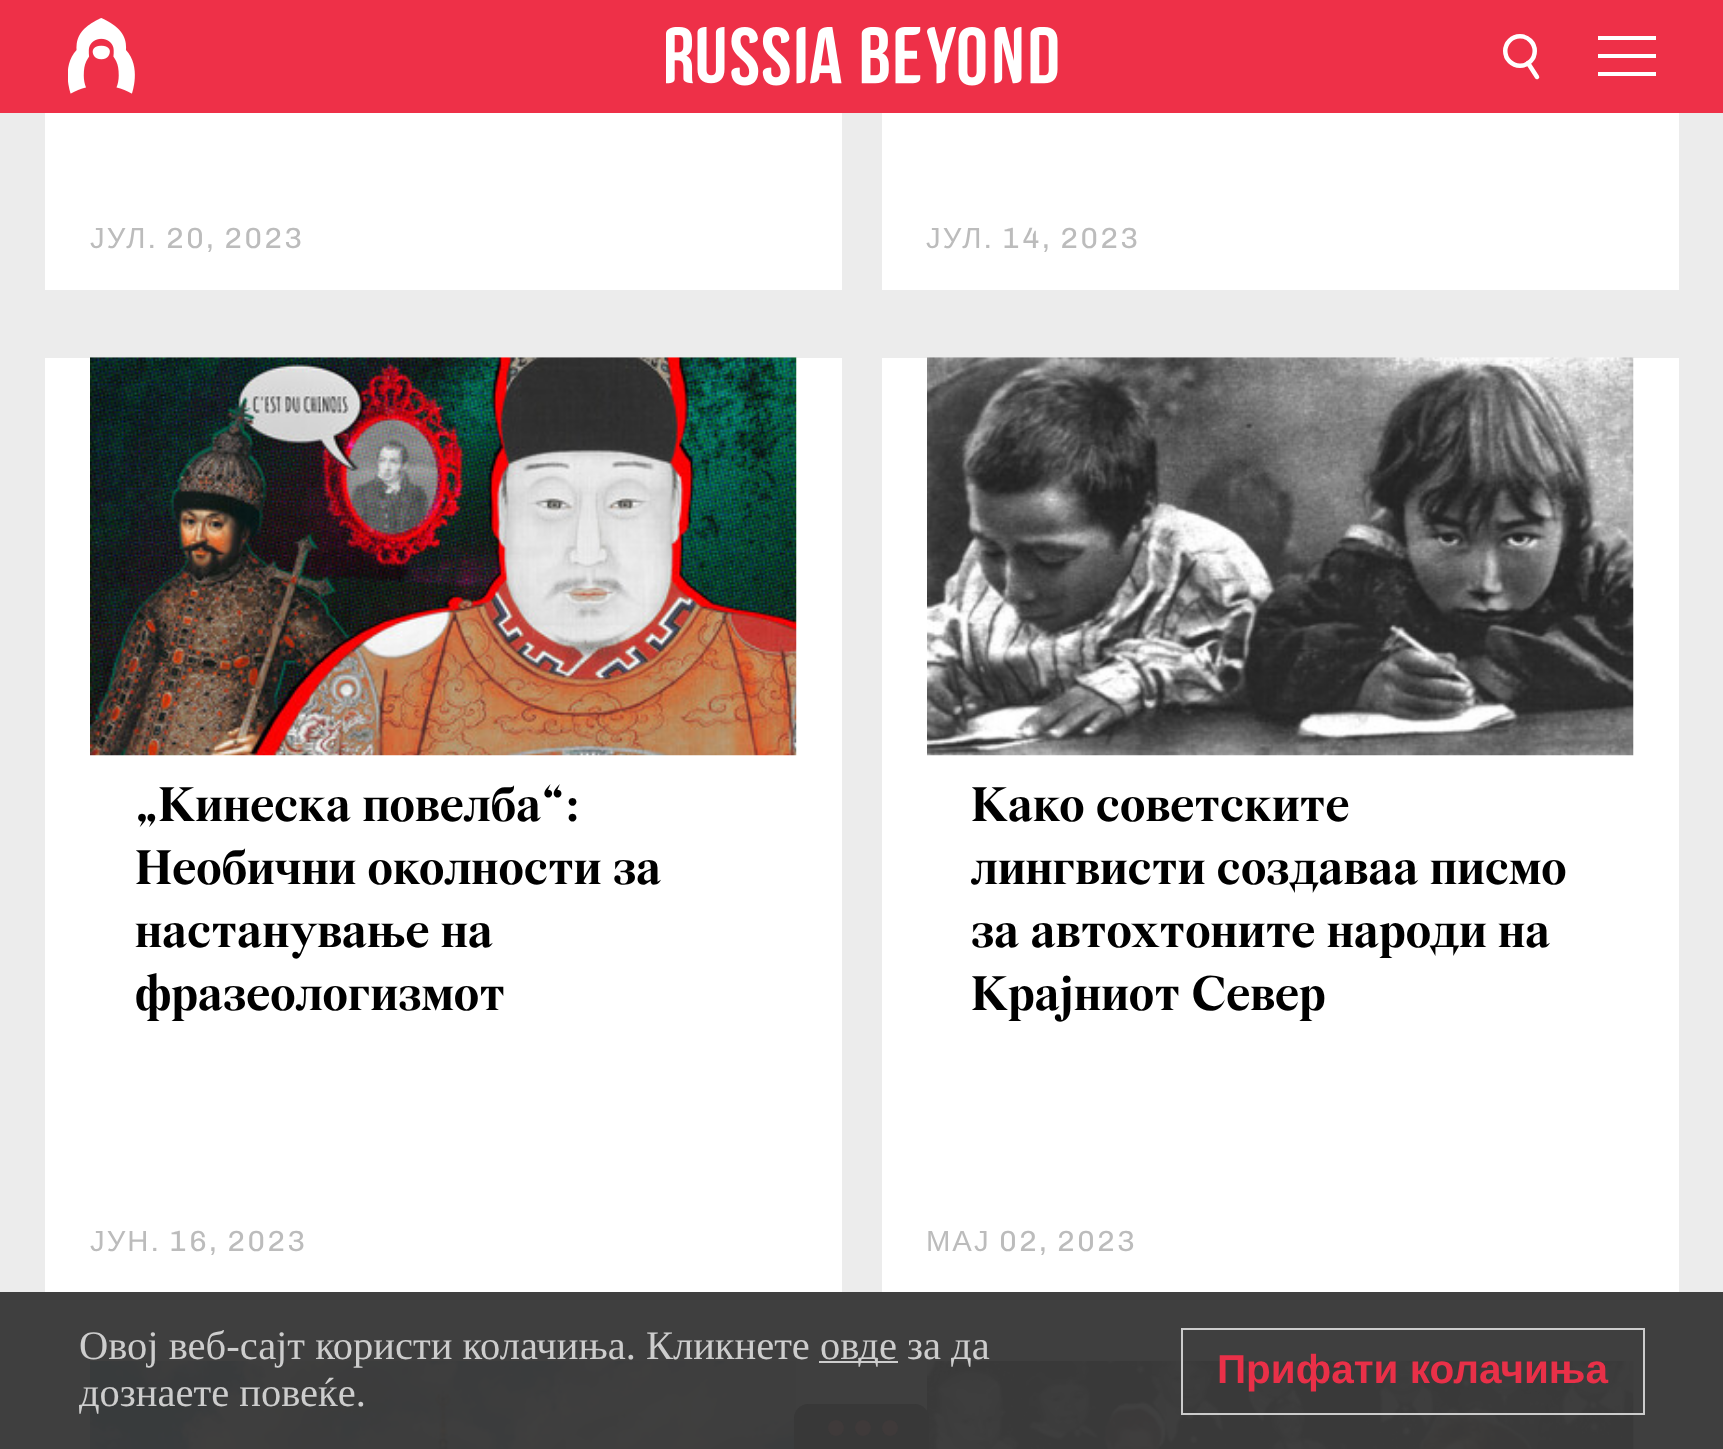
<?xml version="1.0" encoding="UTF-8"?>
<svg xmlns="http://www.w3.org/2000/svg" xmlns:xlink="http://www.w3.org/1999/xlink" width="1723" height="1449">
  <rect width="100%" height="100%" fill="#ececec" />
  <rect y="1292" width="1723" height="157" fill="#3f3f3f" />
  <rect width="1723" height="113" fill="#ee3048" />
  <image x="68" y="18" width="67" height="76" xlink:href="image1.png" />
  <image x="666" y="27" width="392" height="59" xlink:href="image2.png" />
  <circle cx="1520" cy="51" r="14.75" fill="none" stroke="#ffffff" stroke-width="4.5" />
  <path d="M 1528 63 l 9 14" fill="none" stroke="#ffffff" stroke-width="4.5" stroke-linecap="round" />
  <path d="M 1598 36 h 58 v 4 h -58 z m 0 18 h 58 v 4 h -58 z m 0 18 h 58 v 4 h -58 z" fill="#ffffff" fill-rule="evenodd" />
  <rect x="45" y="113" width="797" height="177" fill="#ffffff" />
  <rect x="882" y="113" width="797" height="177" fill="#ffffff" />
  <rect x="45" y="358" width="797" height="934" fill="#ffffff" />
  <image x="90" y="357" width="707" height="399" xlink:href="image3.png" />
  <rect x="882" y="358" width="797" height="934" fill="#ffffff" />
  <image x="927" y="357" width="707" height="399" xlink:href="image4.png" />
  <image x="90" y="1360" width="707" height="89" xlink:href="image5.png" />
  <image x="927" y="1360" width="707" height="89" xlink:href="image6.png" />
  <path d="M 808 1404 h 107 c 7.5 0 14 6.5 14 14 v 31 h -135 v -31 c 0 -7.5 6.5 -14 14 -14 z" fill="#383838" />
  <circle cx="836" cy="1428" r="8" fill="#3f3a3a" />
  <circle cx="863" cy="1428" r="8" fill="#3f3a3a" />
  <circle cx="890" cy="1428" r="8" fill="#3f3a3a" />
  <rect x="819" y="1361" width="79" height="2" fill="#cdcdcd" />
  <rect x="1182" y="1329" width="462" height="85" fill="none" stroke="#d1d1d1" stroke-opacity="0.97" stroke-width="2" />
  <text x="90" y="248" style="font-family: Liberation Sans; font-size: 29.25px; letter-spacing: 2px; fill: #bcbcbc">ЈУЛ</text>
  <text x="148" y="248" style="font-family: Chivo; font-size: 29.25px; letter-spacing: 2px; fill: #bcbcbc">. 20, 2023</text>
  <text x="926" y="248" style="font-family: Liberation Sans; font-size: 29.25px; letter-spacing: 2px; fill: #bcbcbc">ЈУЛ</text>
  <text x="984" y="248" style="font-family: Chivo; font-size: 29.25px; letter-spacing: 2px; fill: #bcbcbc">. 14, 2023</text>
  <text x="135" y="821" style="font-family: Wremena; font-size: 51.75px; font-weight: bold; fill: #000000">„Кинеска повелба“:</text>
  <text x="135" y="884" style="font-family: Wremena; font-size: 51.75px; font-weight: bold; fill: #000000">Необични околности за</text>
  <text x="135" y="947" style="font-family: Wremena; font-size: 51.75px; font-weight: bold; fill: #000000">настанување на</text>
  <text x="135" y="1010" style="font-family: Wremena; font-size: 51.75px; font-weight: bold; fill: #000000">фразеологизмот</text>
  <text x="90" y="1251" style="font-family: Liberation Sans; font-size: 29.25px; letter-spacing: 2px; fill: #bcbcbc">ЈУН</text>
  <text x="151" y="1251" style="font-family: Chivo; font-size: 29.25px; letter-spacing: 2px; fill: #bcbcbc">. 16, 2023</text>
  <text x="971" y="821" style="font-family: Wremena; font-size: 51.75px; font-weight: bold; fill: #000000">Како советските</text>
  <text x="971" y="884" style="font-family: Wremena; font-size: 51.75px; font-weight: bold; fill: #000000">лингвисти создаваа писмо</text>
  <text x="971" y="947" style="font-family: Wremena; font-size: 51.75px; font-weight: bold; fill: #000000">за автохтоните народи на</text>
  <text x="971" y="1010" style="font-family: Wremena; font-size: 51.75px; font-weight: bold; fill: #000000">Крајниот Север</text>
  <text x="926" y="1251" style="font-family: Liberation Sans; font-size: 29.25px; letter-spacing: 2px; fill: #bcbcbc">МАЈ</text>
  <text x="999" y="1251" style="font-family: Chivo; font-size: 29.25px; letter-spacing: 2px; fill: #bcbcbc">02, 2023</text>
  <text x="79" y="1359" style="font-family: Liberation Serif; font-size: 40.5px; fill: #cdcdcd">Овој веб-сајт користи колачиња. Кликнете</text>
  <text x="820" y="1359" style="font-family: Liberation Serif; font-size: 40.5px; fill: #cdcdcd">овде</text>
  <text x="907" y="1359" style="font-family: Liberation Serif; font-size: 40.5px; fill: #cdcdcd">за да</text>
  <text x="79" y="1406" style="font-family: Liberation Serif; font-size: 40.5px; fill: #cdcdcd">дознаете повеќе.</text>
  <text x="1217" y="1383" style="font-family: Liberation Sans; font-size: 40.5px; font-weight: bold; fill: #e93048">Прифати колачиња</text>
</svg>
